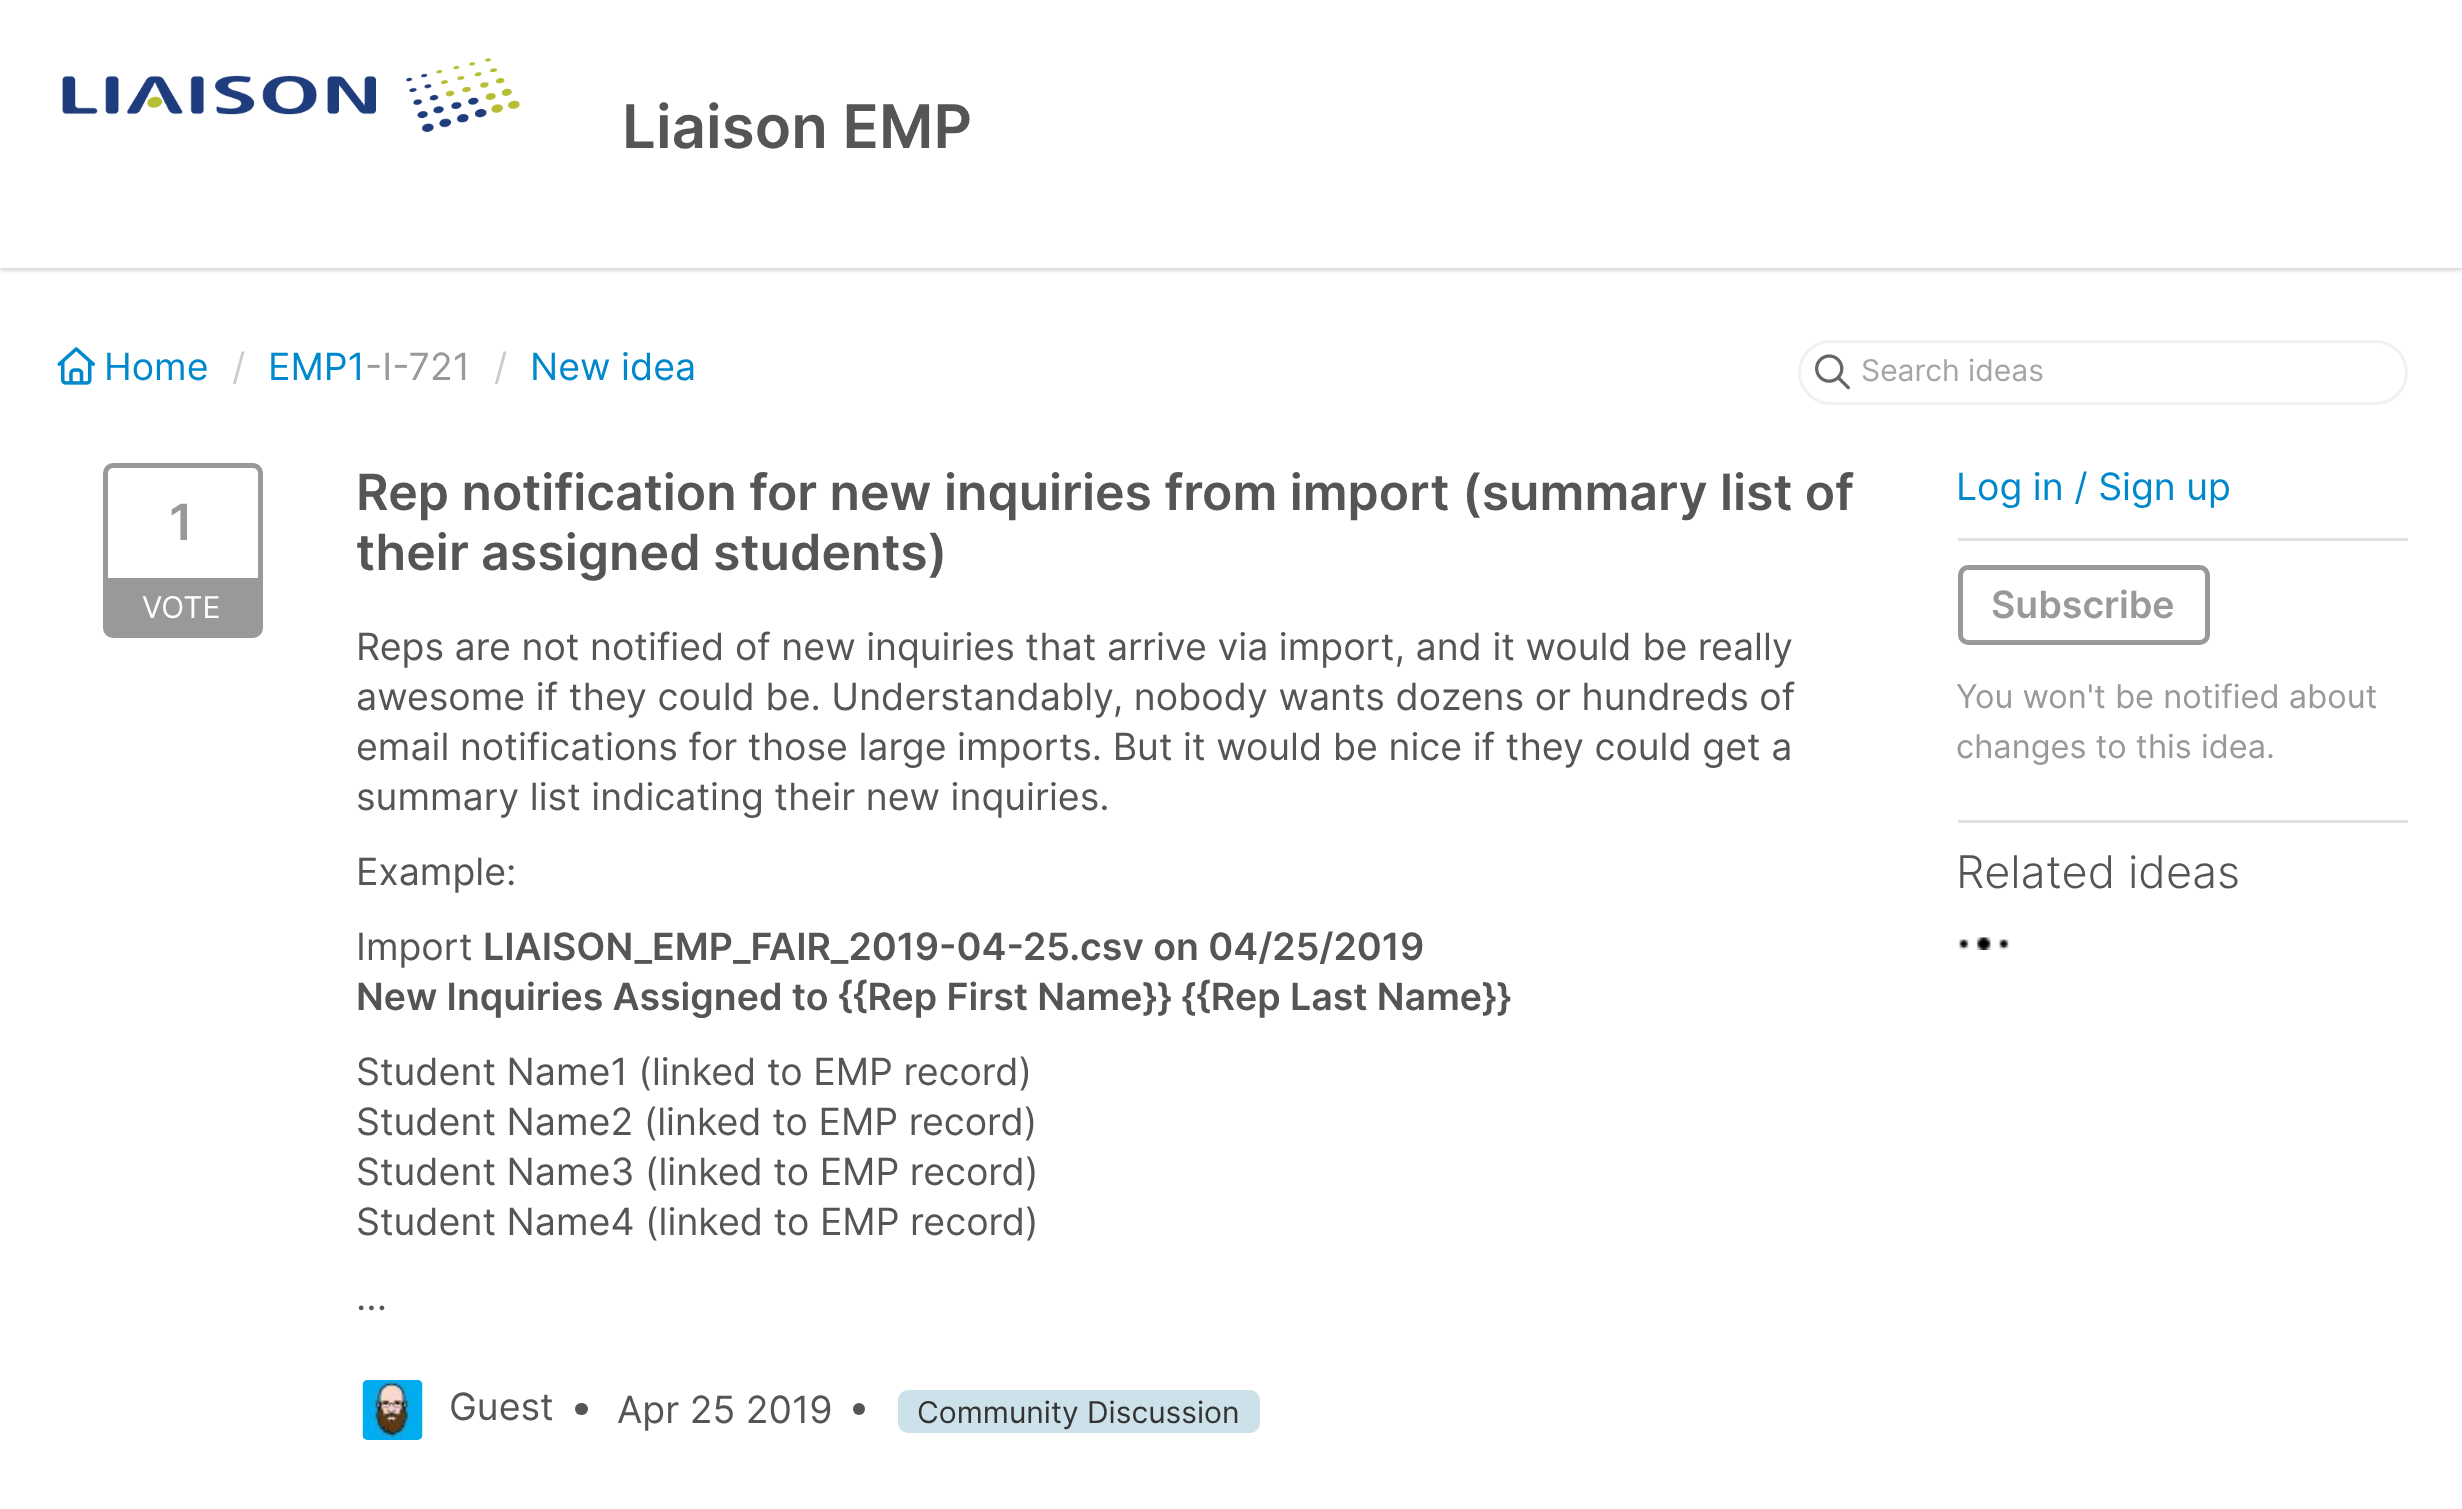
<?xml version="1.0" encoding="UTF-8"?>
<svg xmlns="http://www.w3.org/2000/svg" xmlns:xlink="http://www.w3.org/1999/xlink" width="2462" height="1509">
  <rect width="100%" height="100%" fill="#ffffff" />
  <rect y="3" width="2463" height="267" fill="#000000" fill-opacity="0.2" filter="blur(2.5px)" />
  <rect width="2462" height="268" fill="#ffffff" />
  <image x="62" y="58" width="458" height="74" xlink:href="image1.png" />
  <image x="57" y="347" width="38" height="38" xlink:href="image2.png" />
  <rect x="1799.5" y="341.5" width="607" height="62" rx="31" fill="none" stroke="#f1f1f1" stroke-width="3" />
  <image x="1815" y="354" width="35" height="36" xlink:href="image3.png" />
  <rect x="105.5" y="465.5" width="155" height="170" rx="7.5" fill="none" stroke="#999999" stroke-width="5" />
  <rect x="108" y="578" width="150" height="55" fill="#999999" />
  <image x="362" y="1380" width="61" height="60" xlink:href="image4.png" />
  <rect x="575" y="1403" width="13" height="12" rx="6" fill="#555555" />
  <circle cx="859" cy="1409" r="6" fill="#555555" />
  <rect x="898" y="1390" width="362" height="43" rx="10" fill="#cce1e9" />
  <rect x="1958" y="538" width="450" height="3" fill="#e1e1e1" />
  <rect x="1958" y="820" width="450" height="3" fill="#e1e1e1" />
  <rect x="1960.5" y="567.5" width="247" height="75" rx="7.5" fill="none" stroke="#999999" stroke-width="5" />
  <image x="1958" y="937" width="52" height="13" xlink:href="image5.png" />
  <text x="622" y="148" style="font-family: Inter; font-size: 60px; font-weight: 600; fill: #555555">Liaison EMP</text>
  <text x="104" y="380" style="font-family: Inter; font-size: 37.5px; fill: #0088cc">Home</text>
  <text x="232" y="380" style="font-family: Inter; font-size: 37.5px; fill: #cccccc">/</text>
  <text x="268" y="380" style="font-family: Inter; font-size: 37.5px; fill: #0088cc">EMP1</text>
  <text x="365" y="380" style="font-family: Inter; font-size: 37.5px; fill: #999999">-I-721</text>
  <text x="494" y="380" style="font-family: Inter; font-size: 37.5px; fill: #cccccc">/</text>
  <text x="530" y="380" style="font-family: Inter; font-size: 37.5px; fill: #0088cc">New idea</text>
  <text x="1861" y="381" style="font-family: Inter; font-size: 30px; fill: #a5a5a5">Search ideas</text>
  <text x="169" y="540" style="font-family: Inter; font-size: 50px; font-weight: 600; fill: #999999">1</text>
  <text x="142" y="618" style="font-family: Inter; font-size: 30px; fill: #ffffff">VOTE</text>
  <text x="356" y="510" style="font-family: Inter; font-size: 50px; font-weight: 600; fill: #555555">Rep notification for new inquiries from import (summary list of</text>
  <text x="356" y="570" style="font-family: Inter; font-size: 50px; font-weight: 600; fill: #555555">their assigned students)</text>
  <text x="356" y="660" style="font-family: Inter; font-size: 37.5px; fill: #555555">Reps are not notified of new inquiries that arrive via import, and it would be really</text>
  <text x="356" y="710" style="font-family: Inter; font-size: 37.5px; fill: #555555">awesome if they could be. Understandably, nobody wants dozens or hundreds of</text>
  <text x="356" y="760" style="font-family: Inter; font-size: 37.5px; fill: #555555">email notifications for those large imports. But it would be nice if they could get a</text>
  <text x="356" y="810" style="font-family: Inter; font-size: 37.5px; fill: #555555">summary list indicating their new inquiries.</text>
  <text x="356" y="885" style="font-family: Inter; font-size: 37.5px; fill: #555555">Example:</text>
  <text x="356" y="960" style="font-family: Inter; font-size: 37.5px; fill: #555555">Import</text>
  <text x="483" y="960" style="font-family: Inter; font-size: 37.5px; font-weight: 600; fill: #555555">LIAISON_EMP_FAIR_2019-04-25.csv on 04/25/2019</text>
  <text x="356" y="1010" style="font-family: Inter; font-size: 37.5px; font-weight: 600; fill: #555555">New Inquiries Assigned to {{Rep First Name}} {{Rep Last Name}}</text>
  <text x="356" y="1085" style="font-family: Inter; font-size: 37.5px; fill: #555555">Student Name1 (linked to EMP record)</text>
  <text x="356" y="1135" style="font-family: Inter; font-size: 37.5px; fill: #555555">Student Name2 (linked to EMP record)</text>
  <text x="356" y="1185" style="font-family: Inter; font-size: 37.5px; fill: #555555">Student Name3 (linked to EMP record)</text>
  <text x="356" y="1235" style="font-family: Inter; font-size: 37.5px; fill: #555555">Student Name4 (linked to EMP record)</text>
  <text x="356" y="1310" style="font-family: Inter; font-size: 37.5px; fill: #555555">...</text>
  <text x="449" y="1420" style="font-family: Inter; font-size: 37.5px; fill: #555555">Guest</text>
  <text x="617" y="1423" style="font-family: Inter; font-size: 37.5px; fill: #555555">Apr 25 2019</text>
  <text x="917" y="1423" style="font-family: Inter; font-size: 30px; fill: #333333">Community Discussion</text>
  <text x="1956" y="500" style="font-family: Inter; font-size: 37.5px; fill: #0088cc">Log in / Sign up</text>
  <text x="1991" y="618" style="font-family: Inter; font-size: 37.5px; font-weight: 600; fill: #999999">Subscribe</text>
  <text x="1956" y="708" style="font-family: Inter; font-size: 32.5px; fill: #999999">You won't be notified about</text>
  <text x="1956" y="758" style="font-family: Inter; font-size: 32.5px; fill: #999999">changes to this idea.</text>
  <text x="1956" y="888" style="font-family: Inter; font-size: 45px; font-weight: 300; fill: #555555">Related ideas</text>
</svg>
